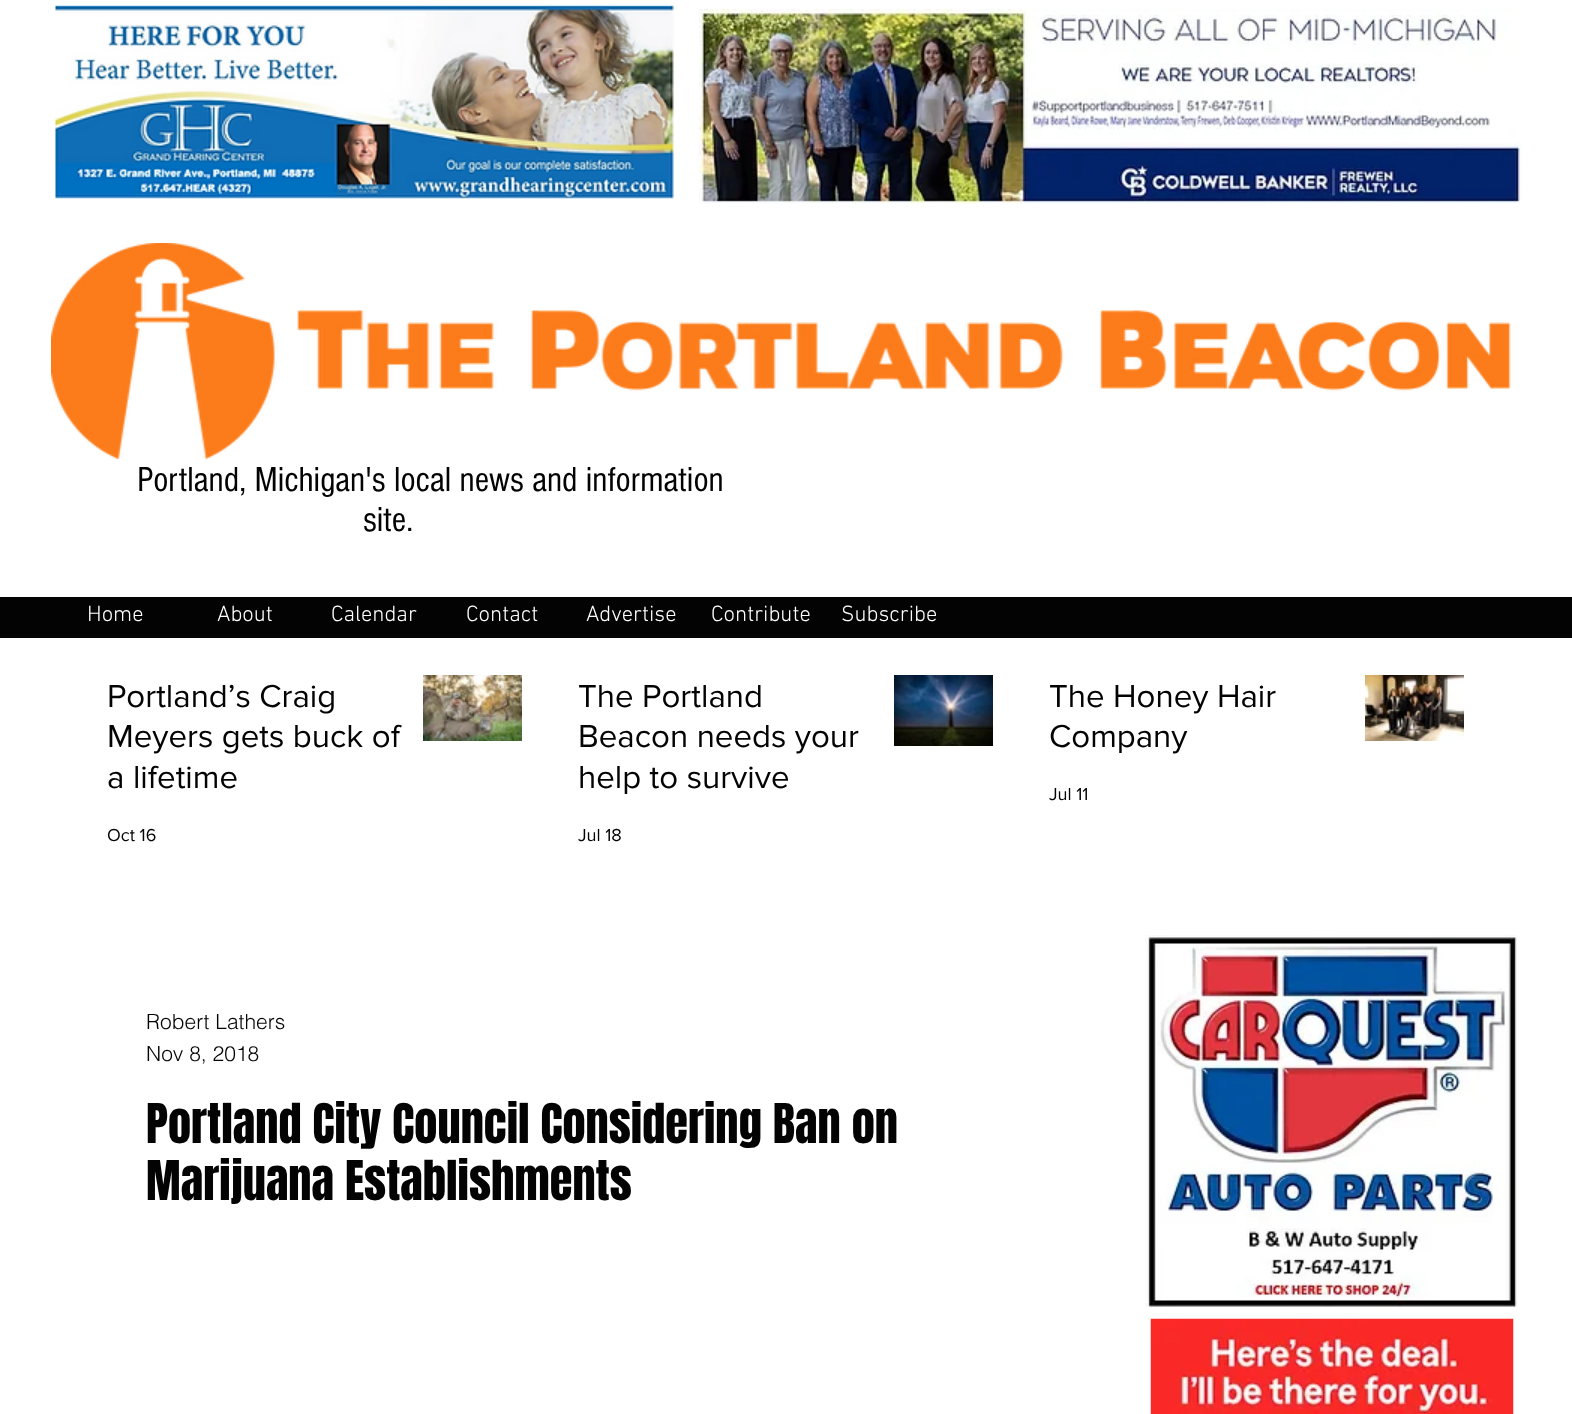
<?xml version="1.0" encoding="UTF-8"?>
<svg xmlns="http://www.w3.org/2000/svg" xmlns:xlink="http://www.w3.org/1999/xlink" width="1572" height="1414">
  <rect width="100%" height="100%" fill="#ffffff" />
  <image x="54" y="4" width="620" height="195" xlink:href="image1.png" />
  <image x="699" y="9" width="823" height="195" xlink:href="image2.png" />
  <image x="51" y="243" width="1460" height="216" xlink:href="image3.png" />
  <rect y="597" width="1572" height="41" fill="#030303" />
  <image x="423" y="675" width="99" height="66" xlink:href="image4.png" />
  <image x="894" y="675" width="99" height="71" xlink:href="image5.png" />
  <image x="1365" y="675" width="99" height="66" xlink:href="image6.png" />
  <image x="1145" y="935" width="372" height="372" xlink:href="image7.png" />
  <image x="1150" y="1318" width="364" height="96" xlink:href="image8.png" />
  <text x="137" y="491" style="font-family: 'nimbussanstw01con'; font-size: 36px; fill: #030303">Portland, Michigan's local news and information</text>
  <text x="363" y="531" style="font-family: 'nimbussanstw01con'; font-size: 36px; fill: #030303">site.</text>
  <text x="87" y="621" style="font-family: 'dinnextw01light'; font-size: 22.5px; font-weight: 300; fill: #ffffff">Home</text>
  <text x="217" y="621" style="font-family: 'dinnextw01light'; font-size: 22.5px; font-weight: 300; fill: #ffffff">About</text>
  <text x="331" y="621" style="font-family: 'dinnextw01light'; font-size: 22.5px; font-weight: 300; fill: #ffffff">Calendar</text>
  <text x="466" y="621" style="font-family: 'dinnextw01light'; font-size: 22.5px; font-weight: 300; fill: #ffffff">Contact</text>
  <text x="586" y="621" style="font-family: 'dinnextw01light'; font-size: 22.5px; font-weight: 300; fill: #ffffff">Advertise</text>
  <text x="711" y="621" style="font-family: 'dinnextw01light'; font-size: 22.5px; font-weight: 300; fill: #ffffff">Contribute</text>
  <text x="841" y="621" style="font-family: 'dinnextw01light'; font-size: 22.5px; font-weight: 300; fill: #ffffff">Subscribe</text>
  <text x="107" y="707" style="font-family: 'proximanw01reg'; font-size: 33px; fill: #030303">Portland’s Craig</text>
  <text x="107" y="747" style="font-family: 'proximanw01reg'; font-size: 33px; fill: #030303">Meyers gets buck of</text>
  <text x="107" y="788" style="font-family: 'proximanw01reg'; font-size: 33px; fill: #030303">a lifetime</text>
  <text x="107" y="841" style="font-family: 'proximanw01reg'; font-size: 18px; fill: #030303">Oct 16</text>
  <text x="578" y="707" style="font-family: 'proximanw01reg'; font-size: 33px; fill: #030303">The Portland</text>
  <text x="578" y="747" style="font-family: 'proximanw01reg'; font-size: 33px; fill: #030303">Beacon needs your</text>
  <text x="578" y="788" style="font-family: 'proximanw01reg'; font-size: 33px; fill: #030303">help to survive</text>
  <text x="578" y="841" style="font-family: 'proximanw01reg'; font-size: 18px; fill: #030303">Jul 18</text>
  <text x="1049" y="707" style="font-family: 'proximanw01reg'; font-size: 33px; fill: #030303">The Honey Hair</text>
  <text x="1049" y="747" style="font-family: 'proximanw01reg'; font-size: 33px; fill: #030303">Company</text>
  <text x="1049" y="800" style="font-family: 'proximanw01reg'; font-size: 18px; fill: #030303">Jul 11</text>
  <text x="146" y="1029" style="font-family: helvetica; font-size: 21px; font-weight: 300; fill: #030303">Robert Lathers</text>
  <text x="146" y="1061" style="font-family: helvetica; font-size: 21px; font-weight: 300; fill: #030303">Nov 8, 2018</text>
  <text x="146" y="1143" style="font-family: Anton; font-size: 46.5px; fill: #030303">Portland City Council Considering Ban on</text>
  <text x="146" y="1200" style="font-family: Anton; font-size: 46.5px; fill: #030303">Marijuana Establishments</text>
</svg>
